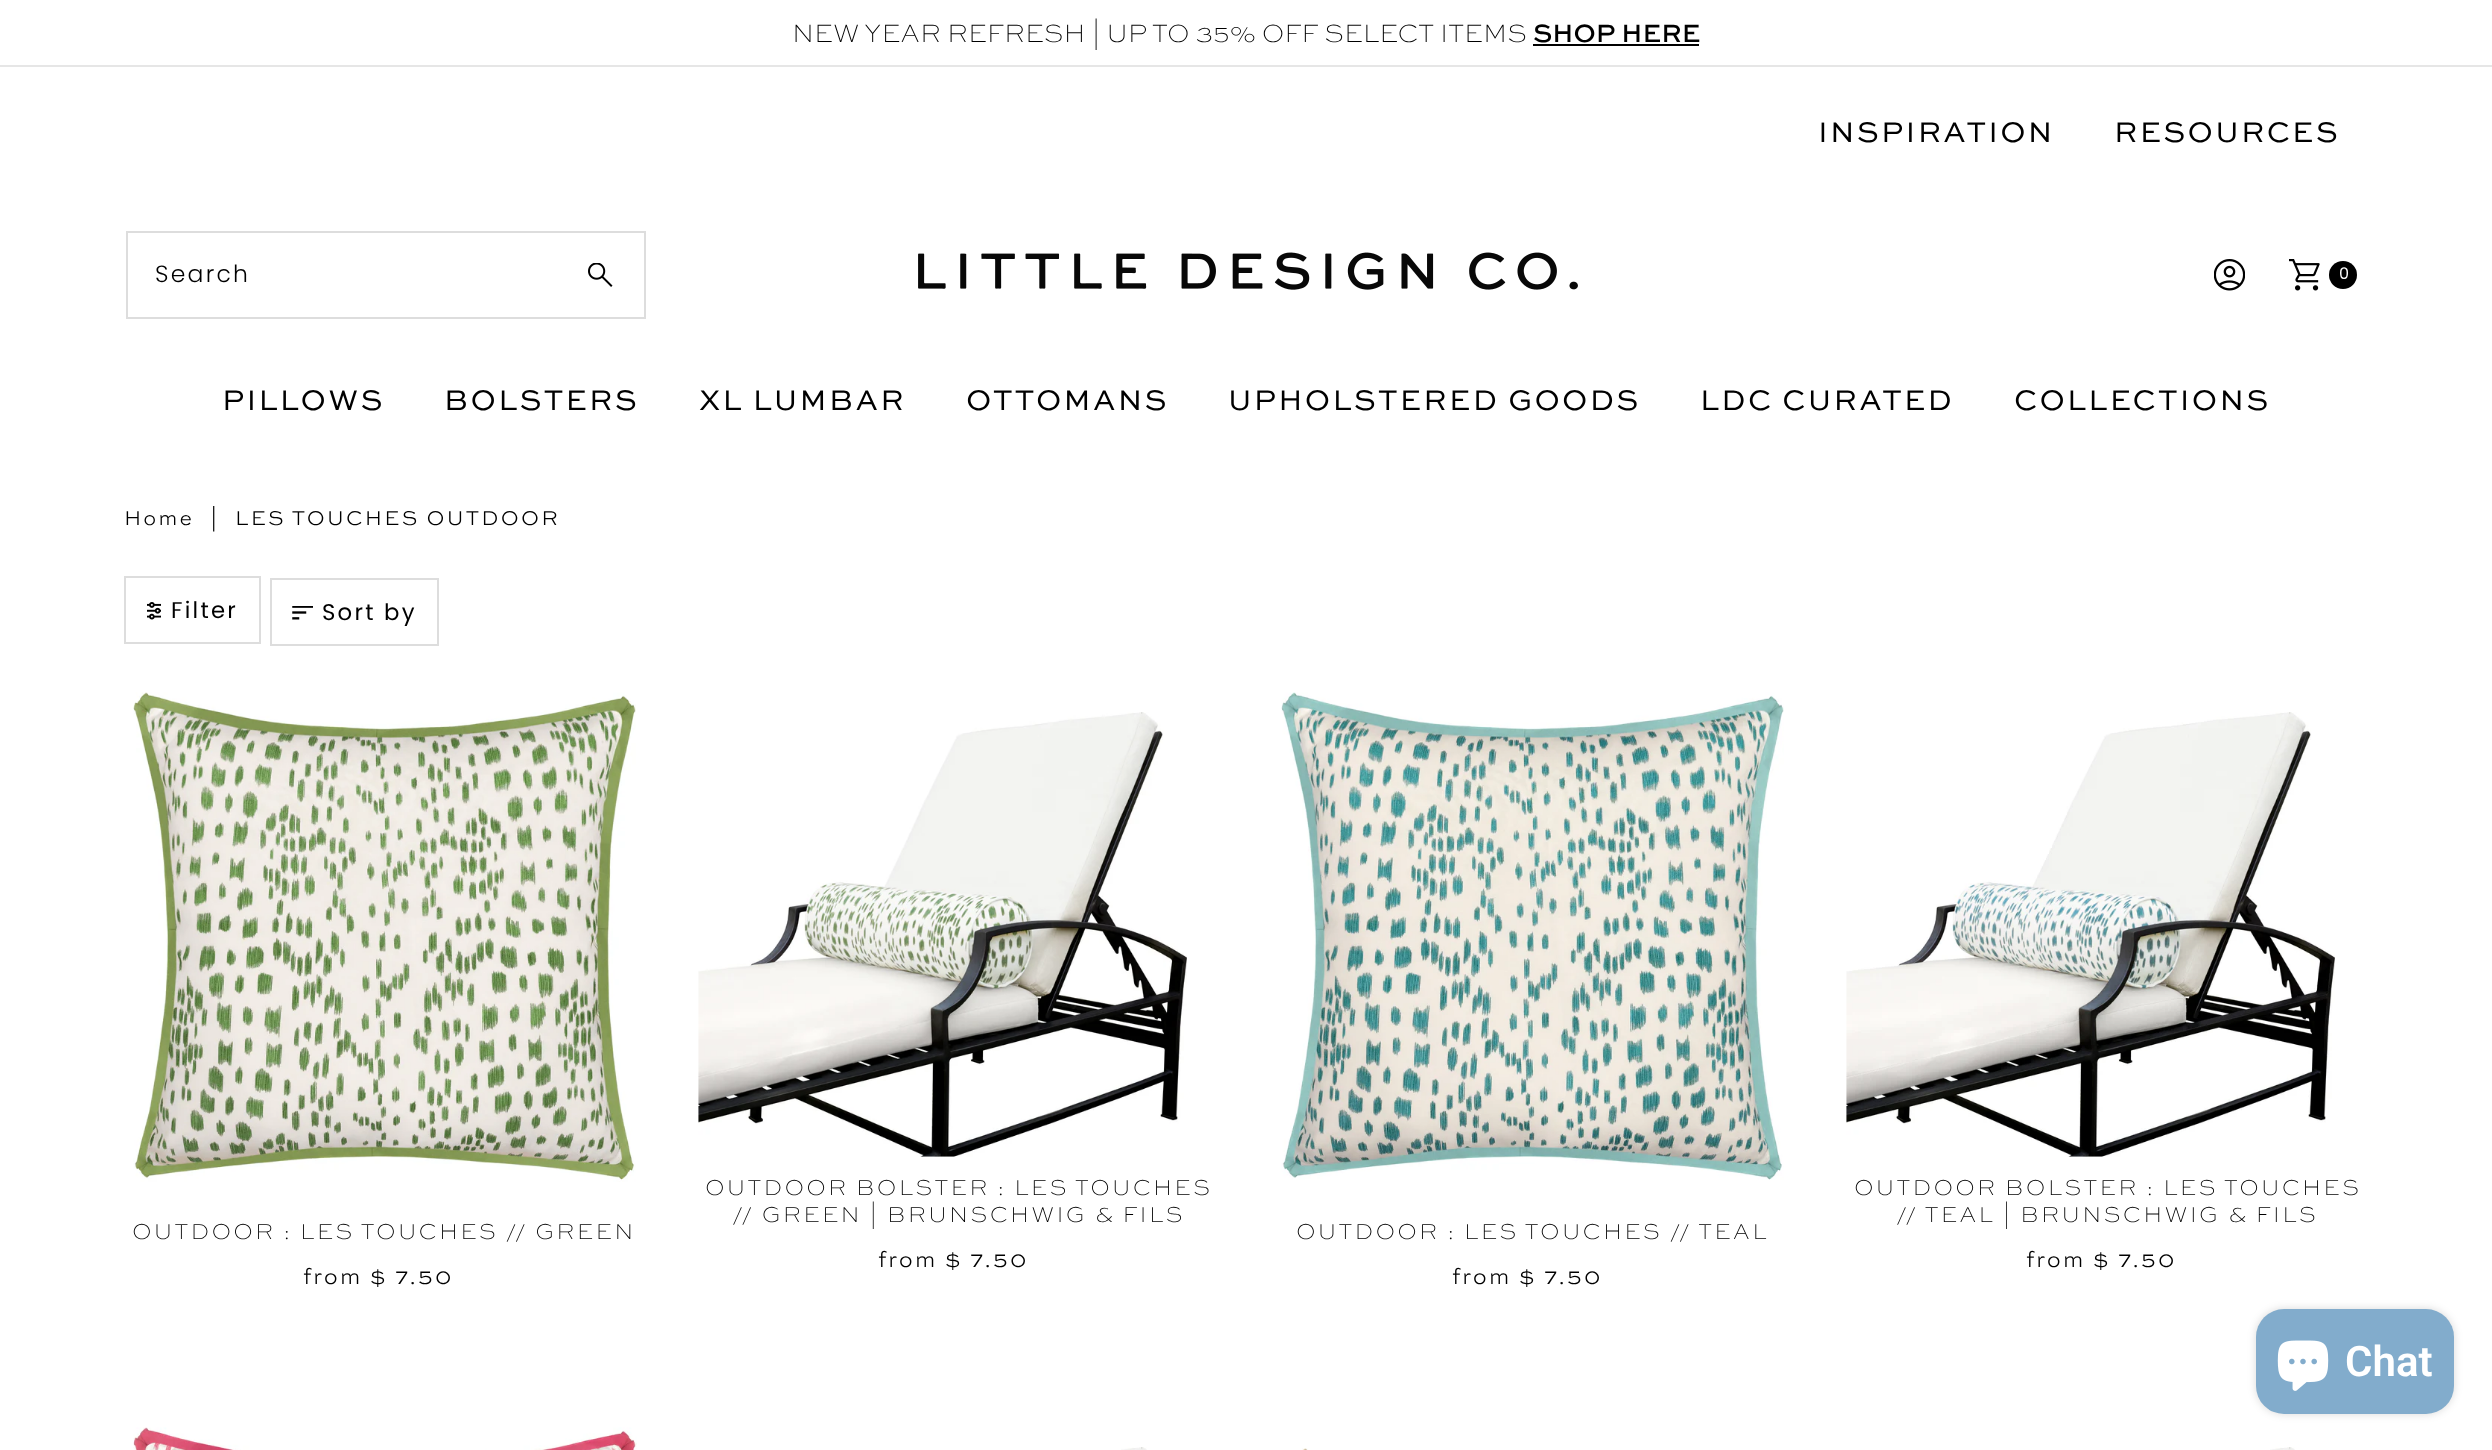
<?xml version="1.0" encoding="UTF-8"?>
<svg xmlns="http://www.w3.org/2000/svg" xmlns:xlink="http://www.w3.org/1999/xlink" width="2492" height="1450">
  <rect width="100%" height="100%" fill="#ffffff" />
  <rect x="1533" y="44" width="166" height="2" fill="#000000" />
  <rect y="65" width="2492" height="2" fill="#e6e6e6" />
  <rect x="127" y="232" width="518" height="86" fill="none" stroke="#dddddd" stroke-width="2" />
  <image x="588" y="263" width="25" height="24" xlink:href="image1.png" />
  <image x="918" y="252" width="660" height="38" xlink:href="image2.png" />
  <image x="2214" y="259" width="31" height="32" xlink:href="image3.png" />
  <image x="2289" y="259" width="31" height="32" xlink:href="image4.png" />
  <circle cx="2343" cy="275" r="14" fill="#000000" />
  <rect x="125" y="577" width="135" height="66" fill="none" stroke="#dddddd" stroke-width="2" />
  <image x="147" y="602" width="14" height="18" xlink:href="image5.png" />
  <rect x="271" y="579" width="167" height="66" fill="none" stroke="#dddddd" stroke-width="2" />
  <image x="292" y="606" width="21" height="14" xlink:href="image6.png" />
  <image x="133" y="692" width="503" height="490" xlink:href="image7.png" />
  <image x="698" y="712" width="489" height="445" xlink:href="image8.png" />
  <image x="1281" y="692" width="503" height="488" xlink:href="image9.png" />
  <image x="1846" y="712" width="489" height="445" xlink:href="image10.png" />
  <image x="133" y="1427" width="504" height="23" xlink:href="image11.png" />
  <image x="1121" y="1447" width="26" height="3" xlink:href="image12.png" />
  <image x="1302" y="1448" width="6" height="2" xlink:href="image13.png" />
  <image x="2270" y="1447" width="25" height="3" xlink:href="image14.png" />
  <rect x="2256" y="1309" width="198" height="105" rx="28" fill="#000000" fill-opacity="0.15" filter="blur(4.5px)" />
  <rect x="2256" y="1309" width="198" height="105" rx="28" fill="#82accc" />
  <image x="2277" y="1340" width="52" height="51" xlink:href="image15.png" />
  <text x="792" y="42" style="font-family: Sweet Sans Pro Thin; font-size: 26.25px; font-weight: 100; fill: #000000">NEW YEAR REFRESH | UP TO 35% OFF SELECT ITEMS</text>
  <text x="1533" y="42" style="font-family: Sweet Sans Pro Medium; font-size: 26.25px; font-weight: 500; fill: #000000">SHOP HERE</text>
  <text x="1818" y="142" style="font-family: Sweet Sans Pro; font-size: 29.75px; letter-spacing: 2.25px; fill: #000000">INSPIRATION</text>
  <text x="2114" y="142" style="font-family: Sweet Sans Pro; font-size: 29.75px; letter-spacing: 2.25px; fill: #000000">RESOURCES</text>
  <text x="155" y="282" style="font-family: Poppins; font-size: 23.5px; font-weight: 300; letter-spacing: 2.25px; fill: #000000">Search</text>
  <text x="2339" y="279" style="font-family: Poppins; font-size: 16px; fill: #ffffff">0</text>
  <text x="222" y="410" style="font-family: Sweet Sans Pro; font-size: 29.75px; letter-spacing: 2.25px; fill: #000000">PILLOWS</text>
  <text x="444" y="410" style="font-family: Sweet Sans Pro; font-size: 29.75px; letter-spacing: 2.25px; fill: #000000">BOLSTERS</text>
  <text x="699" y="410" style="font-family: Sweet Sans Pro; font-size: 29.75px; letter-spacing: 2.25px; fill: #000000">XL LUMBAR</text>
  <text x="966" y="410" style="font-family: Sweet Sans Pro; font-size: 29.75px; letter-spacing: 2.25px; fill: #000000">OTTOMANS</text>
  <text x="1228" y="410" style="font-family: Sweet Sans Pro; font-size: 29.75px; letter-spacing: 2.25px; fill: #000000">UPHOLSTERED GOODS</text>
  <text x="1700" y="410" style="font-family: Sweet Sans Pro; font-size: 29.75px; letter-spacing: 2.25px; fill: #000000">LDC CURATED</text>
  <text x="2014" y="410" style="font-family: Sweet Sans Pro; font-size: 29.75px; letter-spacing: 2.25px; fill: #000000">COLLECTIONS</text>
  <text x="124" y="525" style="font-family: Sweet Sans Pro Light; font-size: 21px; font-weight: 300; letter-spacing: 2.25px; fill: #000000">Home</text>
  <text x="210" y="525" style="font-family: Sweet Sans Pro Light; font-size: 21px; font-weight: 300; letter-spacing: 2.25px; fill: #000000">|</text>
  <text x="235" y="525" style="font-family: Sweet Sans Pro Light; font-size: 21px; font-weight: 300; letter-spacing: 2.25px; fill: #000000">LES TOUCHES OUTDOOR</text>
  <text x="171" y="618" style="font-family: Poppins; font-size: 22.75px; letter-spacing: 2.25px; fill: #000000">Filter</text>
  <text x="322" y="620" style="font-family: Poppins; font-size: 22.75px; letter-spacing: 2.25px; fill: #000000">Sort by</text>
  <text x="132" y="1239" style="font-family: Sweet Sans Pro Thin; font-size: 22.75px; font-weight: 100; letter-spacing: 2.25px; fill: #000000">OUTDOOR : LES TOUCHES // GREEN</text>
  <text x="303" y="1284" style="font-family: Sweet Sans Pro Light; font-size: 22.75px; font-weight: 300; letter-spacing: 2.25px; fill: #000000">from $ 7.50</text>
  <text x="705" y="1195" style="font-family: Sweet Sans Pro Thin; font-size: 22.75px; font-weight: 100; letter-spacing: 2.25px; fill: #000000">OUTDOOR BOLSTER : LES TOUCHES</text>
  <text x="732" y="1222" style="font-family: Sweet Sans Pro Thin; font-size: 22.75px; font-weight: 100; letter-spacing: 2.25px; fill: #000000">// GREEN | BRUNSCHWIG &amp; FILS</text>
  <text x="878" y="1267" style="font-family: Sweet Sans Pro Light; font-size: 22.75px; font-weight: 300; letter-spacing: 2.25px; fill: #000000">from $ 7.50</text>
  <text x="1296" y="1239" style="font-family: Sweet Sans Pro Thin; font-size: 22.75px; font-weight: 100; letter-spacing: 2.25px; fill: #000000">OUTDOOR : LES TOUCHES // TEAL</text>
  <text x="1452" y="1284" style="font-family: Sweet Sans Pro Light; font-size: 22.75px; font-weight: 300; letter-spacing: 2.25px; fill: #000000">from $ 7.50</text>
  <text x="1854" y="1195" style="font-family: Sweet Sans Pro Thin; font-size: 22.75px; font-weight: 100; letter-spacing: 2.25px; fill: #000000">OUTDOOR BOLSTER : LES TOUCHES</text>
  <text x="1896" y="1222" style="font-family: Sweet Sans Pro Thin; font-size: 22.75px; font-weight: 100; letter-spacing: 2.25px; fill: #000000">// TEAL | BRUNSCHWIG &amp; FILS</text>
  <text x="2026" y="1267" style="font-family: Sweet Sans Pro Light; font-size: 22.75px; font-weight: 300; letter-spacing: 2.25px; fill: #000000">from $ 7.50</text>
  <text x="2345" y="1376" style="font-family: Roboto; font-size: 42px; font-weight: 600; fill: #ffffff">Chat</text>
</svg>
